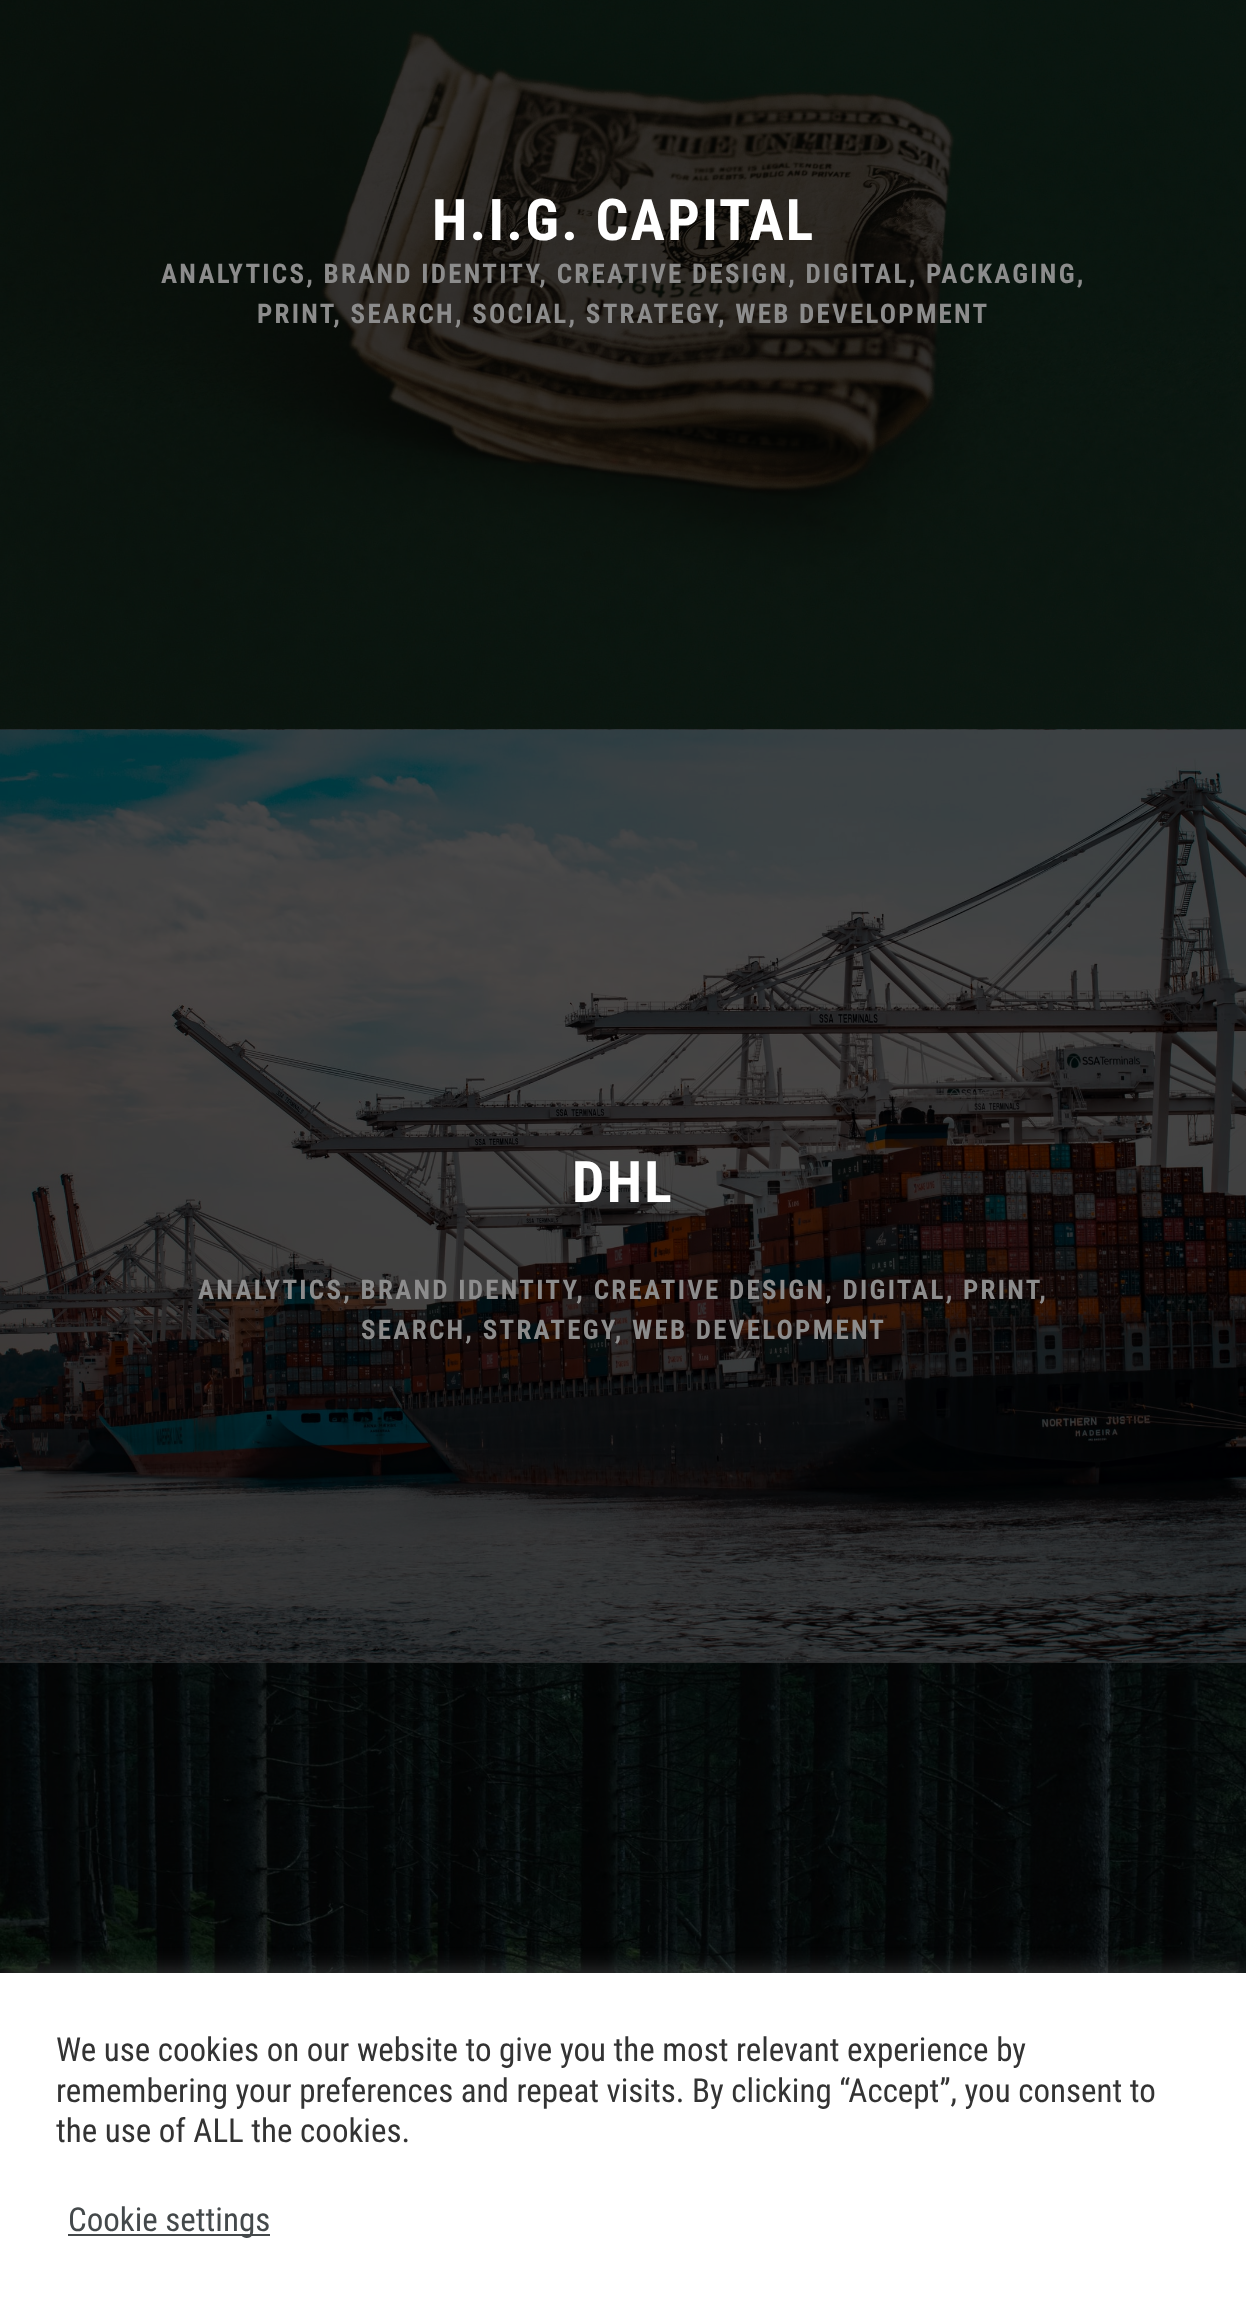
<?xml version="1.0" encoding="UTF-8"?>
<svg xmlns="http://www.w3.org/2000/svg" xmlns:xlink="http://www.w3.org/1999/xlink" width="1246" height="2322">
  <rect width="100%" height="100%" fill="#ffffff" />
  <image x="0" y="0" width="1246" height="729" xlink:href="image1.png" />
  <image x="0" y="729" width="1246" height="934" xlink:href="image2.png" />
  <image x="0" y="1662" width="1246" height="311" xlink:href="image3.png" />
  <rect y="729" width="1246" height="934" fill="#000000" fill-opacity="0.7" />
  <rect y="1971" width="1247" height="349" fill="#acabab" fill-opacity="0.3" filter="blur(11px)" />
  <rect y="1973" width="1246" height="349" fill="#ffffff" />
  <rect x="68" y="2234" width="202" height="2" fill="#44494b" />
  <text x="432" y="240" style="font-family: Roboto Condensed; font-size: 57.5px; font-weight: bold; letter-spacing: 2.25px; fill: #ffffff">H.I.G. CAPITAL</text>
  <text x="161" y="283" style="font-family: Roboto Condensed; font-size: 27px; font-weight: bold; letter-spacing: 2.25px; fill: #8c8c8c">ANALYTICS, BRAND IDENTITY, CREATIVE DESIGN, DIGITAL, PACKAGING,</text>
  <text x="257" y="323" style="font-family: Roboto Condensed; font-size: 27px; font-weight: bold; letter-spacing: 2.25px; fill: #8c8c8c">PRINT, SEARCH, SOCIAL, STRATEGY, WEB DEVELOPMENT</text>
  <text x="572" y="1202" style="font-family: Roboto Condensed; font-size: 57.5px; font-weight: bold; letter-spacing: 2.25px; fill: #ffffff">DHL</text>
  <text x="198" y="1299" style="font-family: Roboto Condensed; font-size: 27px; font-weight: bold; letter-spacing: 2.25px; fill: #8c8c8c">ANALYTICS, BRAND IDENTITY, CREATIVE DESIGN, DIGITAL, PRINT,</text>
  <text x="361" y="1339" style="font-family: Roboto Condensed; font-size: 27px; font-weight: bold; letter-spacing: 2.25px; fill: #8c8c8c">SEARCH, STRATEGY, WEB DEVELOPMENT</text>
  <text x="56" y="2061" style="font-family: Roboto Condensed; font-size: 33px; fill: #333333">We use cookies on our website to give you the most relevant experience by</text>
  <text x="56" y="2102" style="font-family: Roboto Condensed; font-size: 33px; fill: #333333">remembering your preferences and repeat visits. By clicking “Accept”, you consent to</text>
  <text x="56" y="2142" style="font-family: Roboto Condensed; font-size: 33px; fill: #333333">the use of ALL the cookies.</text>
  <text x="68" y="2231" style="font-family: Roboto Condensed; font-size: 33px; fill: #44494b">Cookie settings</text>
</svg>
